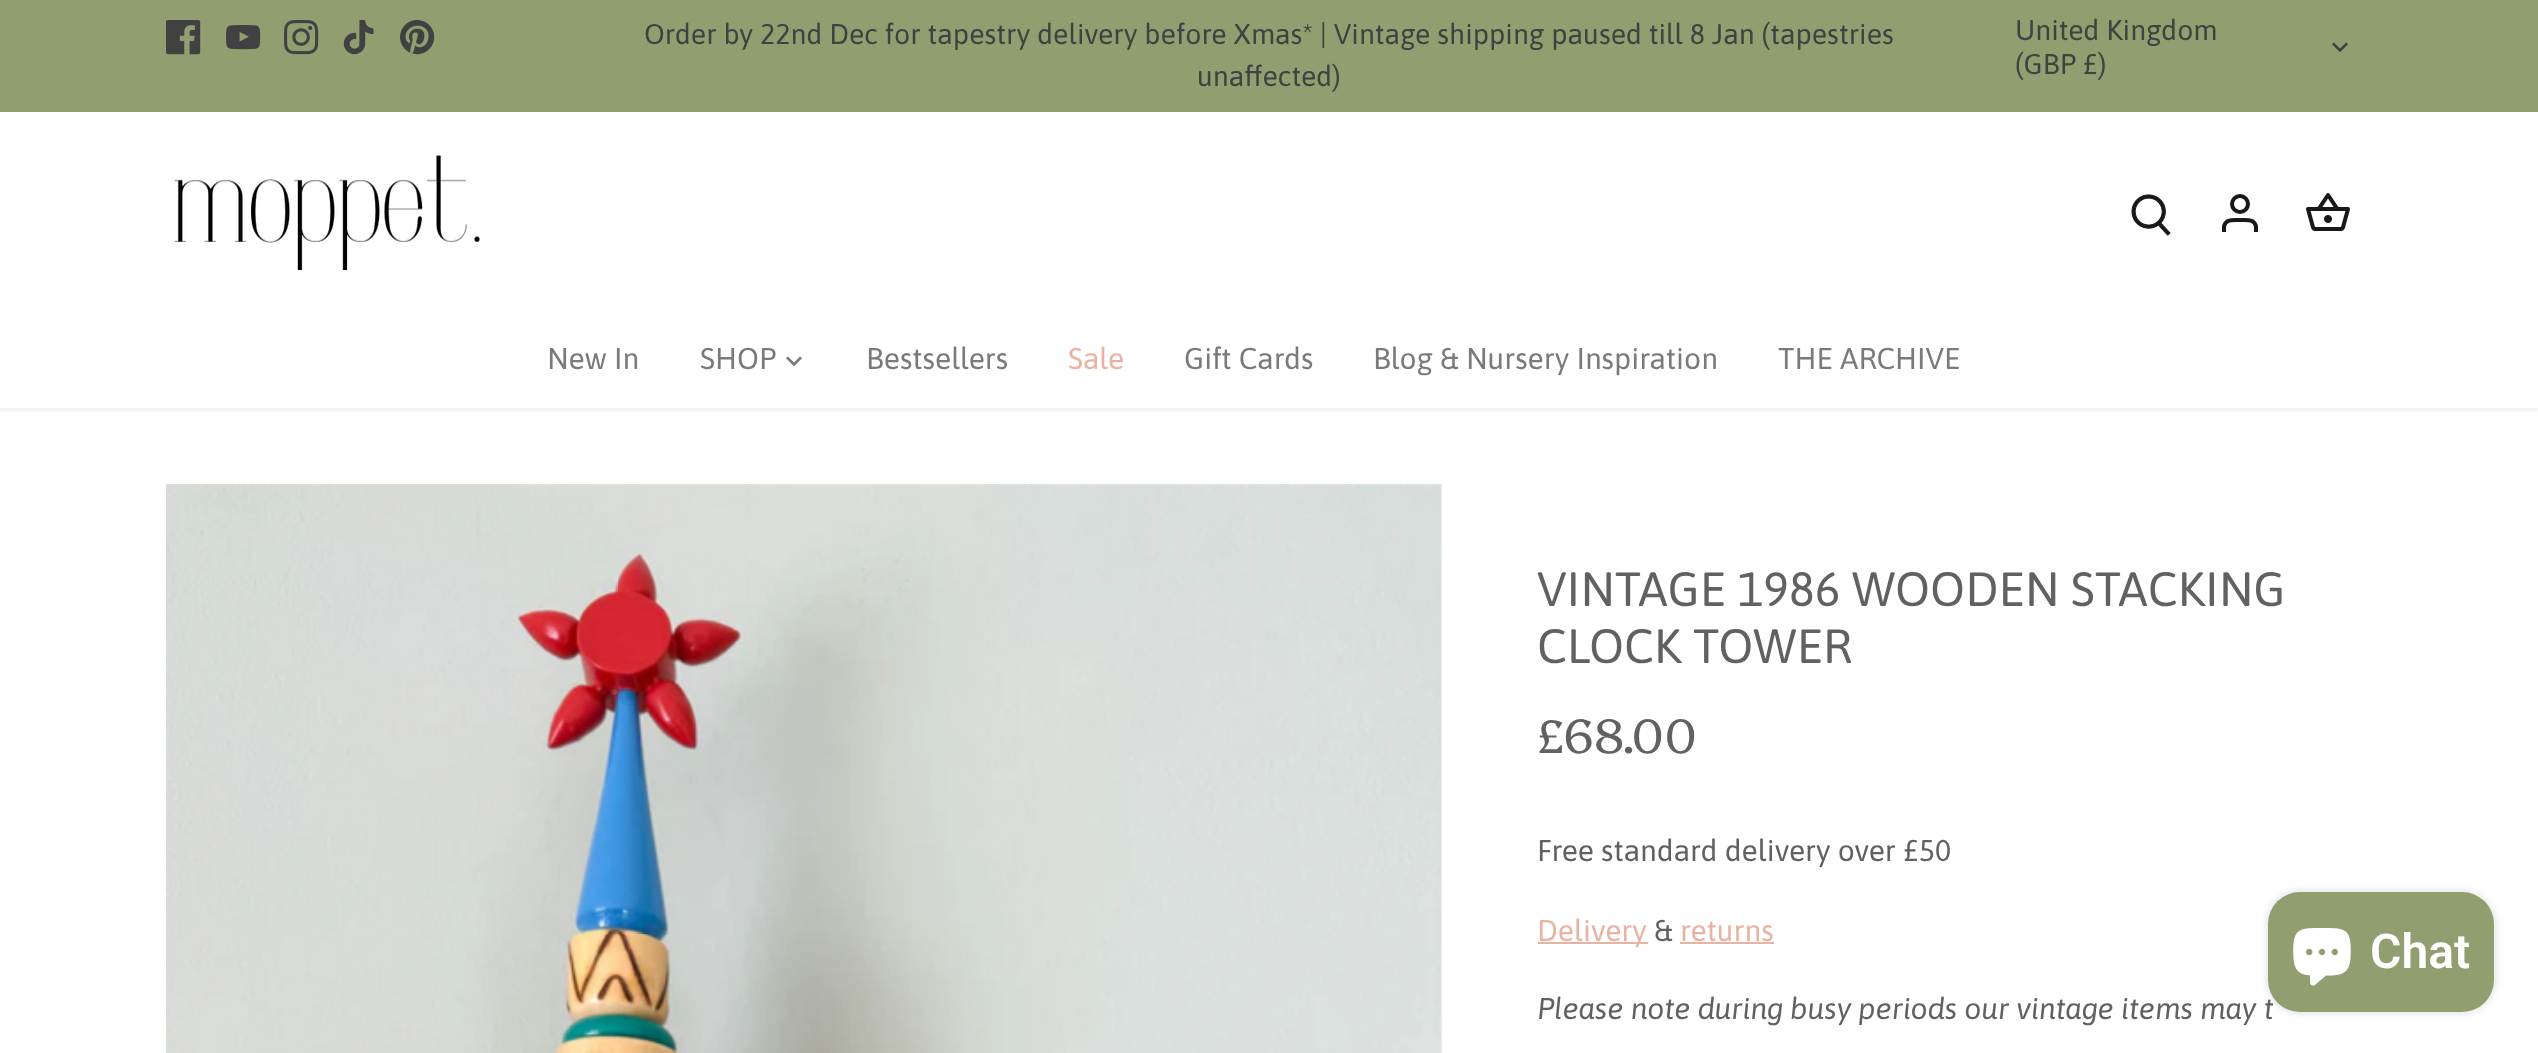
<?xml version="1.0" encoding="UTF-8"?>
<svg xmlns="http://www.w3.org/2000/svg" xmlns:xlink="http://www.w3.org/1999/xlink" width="2538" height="1053">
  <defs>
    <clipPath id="clip1"><rect x="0" y="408" width="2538" height="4" /></clipPath>
  </defs>
  <rect width="100%" height="100%" fill="#ffffff" />
  <g clip-path="url(#clip1)">
    <rect x="-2" y="110" width="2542" height="300" fill="#000000" fill-opacity="0.08" filter="blur(3px)" />
  </g>
  <rect width="2538" height="112" fill="#919f70" />
  <image x="166" y="20" width="35" height="35" xlink:href="image1.png" />
  <image x="226" y="25" width="35" height="25" xlink:href="image2.png" />
  <image x="284" y="20" width="35" height="35" xlink:href="image3.png" />
  <image x="343" y="20" width="31" height="35" xlink:href="image4.png" />
  <image x="400" y="20" width="35" height="35" xlink:href="image5.png" />
  <image x="2332" y="42" width="16" height="11" xlink:href="image6.png" />
  <image x="174" y="155" width="306" height="115" xlink:href="image7.png" />
  <image x="2131" y="194" width="40" height="42" xlink:href="image8.png" />
  <circle cx="2240" cy="204" r="8" fill="none" stroke="#191817" stroke-width="4" />
  <path d="M 2256 232 v -5.5 c -1.5 -8 -10 -6.5 -16 -6.5 c -6 0 -14.5 -1.5 -16 6.5 v 5.5" fill="none" stroke="#191817" stroke-width="4" />
  <image x="2306" y="193" width="44" height="38" xlink:href="image9.png" />
  <image x="786" y="356" width="16" height="11" xlink:href="image10.png" />
  <image x="166" y="484" width="1276" height="569" xlink:href="image11.png" />
  <rect x="1538" y="942" width="110" height="2" fill="#e9b3a3" />
  <rect x="1680" y="942" width="94" height="2" fill="#e9b3a3" />
  <rect x="2268" y="892" width="226" height="120" rx="32" fill="#000000" fill-opacity="0.15" filter="blur(5px)" />
  <text x="644" y="44" style="font-family: Asap; font-size: 28.5px; fill: #414141">Order by 22nd Dec for tapestry delivery before Xmas* | Vintage shipping paused till 8 Jan (tapestries</text>
  <text x="1197" y="86" style="font-family: Asap; font-size: 28.5px; fill: #414141">unaffected)</text>
  <text x="2015" y="40" style="font-family: Asap; font-size: 28.5px; fill: #414141">United Kingdom</text>
  <text x="2015" y="74" style="font-family: Asap; font-size: 28.5px; fill: #414141">(GBP £)</text>
  <text x="547" y="369" style="font-family: Asap; font-size: 30px; fill: #787a7c">New In</text>
  <text x="700" y="369" style="font-family: Asap; font-size: 30px; fill: #787a7c">SHOP</text>
  <text x="866" y="369" style="font-family: Asap; font-size: 30px; fill: #787a7c">Bestsellers</text>
  <text x="1068" y="369" style="font-family: Asap; font-size: 30px; fill: #e9b3a3">Sale</text>
  <text x="1184" y="369" style="font-family: Asap; font-size: 30px; fill: #787a7c">Gift Cards</text>
  <text x="1373" y="369" style="font-family: Asap; font-size: 30px; fill: #787a7c">Blog &amp; Nursery Inspiration</text>
  <text x="1778" y="369" style="font-family: Asap; font-size: 30px; fill: #787a7c">THE ARCHIVE</text>
  <text x="1537" y="606" style="font-family: Asap; font-size: 48px; fill: #616161">VINTAGE 1986 WOODEN STACKING</text>
  <text x="1537" y="663" style="font-family: Asap; font-size: 48px; fill: #616161">CLOCK TOWER</text>
  <text x="1537" y="753" style="font-family: Platypi; font-size: 48px; font-weight: 300; fill: #616161">£68.00</text>
  <text x="1537" y="861" style="font-family: Asap; font-size: 30px; fill: #616161">Free standard delivery over £50</text>
  <text x="1537" y="941" style="font-family: Asap; font-size: 30px; fill: #e9b3a3">Delivery</text>
  <text x="1654" y="941" style="font-family: Asap; font-size: 30px; fill: #616161">&amp;</text>
  <text x="1680" y="941" style="font-family: Asap; font-size: 30px; fill: #e9b3a3">returns</text>
  <text x="1537" y="1019" style="font-family: Asap; font-size: 30px; font-style: italic; fill: #616161">Please note during busy periods our vintage items may t</text>
  <rect x="2268" y="892" width="226" height="120" rx="32" fill="#919f70" />
  <image x="2293" y="928" width="58" height="58" xlink:href="image12.png" />
  <text x="2370" y="968" style="font-family: Roboto; font-size: 48px; font-weight: 600; fill: #ffffff">Chat</text>
</svg>
